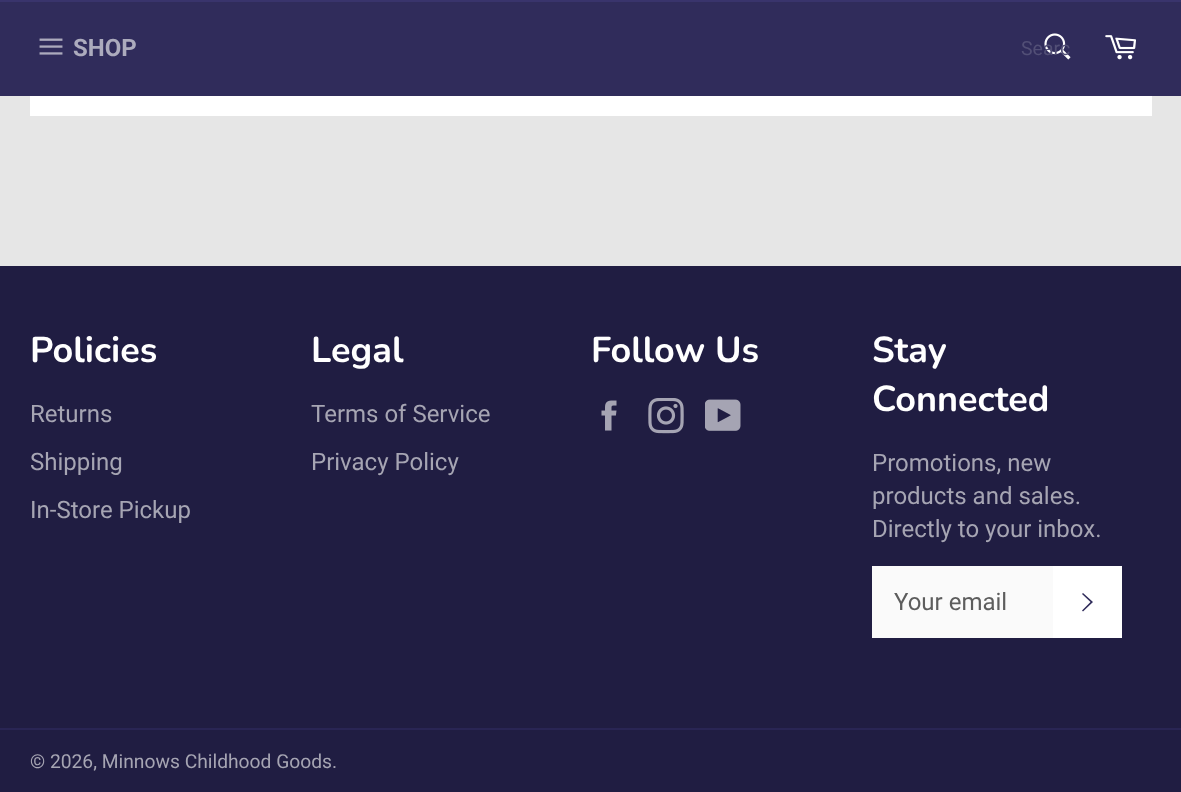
<?xml version="1.0" encoding="UTF-8"?>
<svg xmlns="http://www.w3.org/2000/svg" xmlns:xlink="http://www.w3.org/1999/xlink" width="1181" height="792">
  <rect width="100%" height="100%" fill="#e6e6e6" />
  <rect y="2" width="1181" height="94" fill="#302c5b" />
  <rect width="1181" height="2" fill="#39346c" />
  <image x="39" y="38" width="24" height="17" xlink:href="image1.png" />
  <image x="1044" y="33" width="27" height="27" xlink:href="image2.png" />
  <image x="1105" y="35" width="31" height="25" xlink:href="image3.png" />
  <rect x="30" y="96" width="1122" height="20" fill="#ffffff" />
  <rect y="266" width="1181" height="526" fill="#201d42" />
  <image x="601" y="400" width="16" height="31" xlink:href="image4.png" />
  <image x="648" y="398" width="36" height="36" xlink:href="image5.png" />
  <image x="705" y="399" width="36" height="32" xlink:href="image6.png" />
  <rect x="872" y="566" width="181" height="72" fill="#fafafa" />
  <rect x="1053" y="566" width="69" height="72" fill="#ffffff" />
  <path d="M 1082 594 l 1 -1 l 10 9 l -10 9.5 l -1 -1 l 8.5 -8.5 z" fill="#302c5b" />
  <rect y="728" width="1181" height="2" fill="#292554" />
  <text x="73" y="56" style="font-family: Roboto; font-size: 24px; font-weight: bold; fill: #acabbd">SHOP</text>
  <text x="1021" y="55" style="font-family: Roboto; font-size: 19.5px; fill: #524f76">Searc</text>
  <text x="30" y="362" style="font-family: Nunito; font-size: 36px; font-weight: bold; fill: #ffffff">Policies</text>
  <text x="30" y="422" style="font-family: Roboto; font-size: 24px; fill: #a6a5b3">Returns</text>
  <text x="30" y="470" style="font-family: Roboto; font-size: 24px; fill: #a6a5b3">Shipping</text>
  <text x="30" y="518" style="font-family: Roboto; font-size: 24px; fill: #a6a5b3">In-Store Pickup</text>
  <text x="311" y="362" style="font-family: Nunito; font-size: 36px; font-weight: bold; fill: #ffffff">Legal</text>
  <text x="311" y="422" style="font-family: Roboto; font-size: 24px; fill: #a6a5b3">Terms of Service</text>
  <text x="311" y="470" style="font-family: Roboto; font-size: 24px; fill: #a6a5b3">Privacy Policy</text>
  <text x="591" y="362" style="font-family: Nunito; font-size: 36px; font-weight: bold; fill: #ffffff">Follow Us</text>
  <text x="872" y="362" style="font-family: Nunito; font-size: 36px; font-weight: bold; fill: #ffffff">Stay</text>
  <text x="872" y="411" style="font-family: Nunito; font-size: 36px; font-weight: bold; fill: #ffffff">Connected</text>
  <text x="872" y="471" style="font-family: Roboto; font-size: 24px; fill: #a6a5b3">Promotions, new</text>
  <text x="872" y="504" style="font-family: Roboto; font-size: 24px; fill: #a6a5b3">products and sales.</text>
  <text x="872" y="537" style="font-family: Roboto; font-size: 24px; fill: #a6a5b3">Directly to your inbox.</text>
  <text x="894" y="610" style="font-family: Roboto; font-size: 24px; fill: #5d5d5d">Your email</text>
  <text x="30" y="768" style="font-family: Roboto; font-size: 19.25px; fill: #a6a5b3">© 2026, Minnows Childhood Goods.</text>
</svg>
